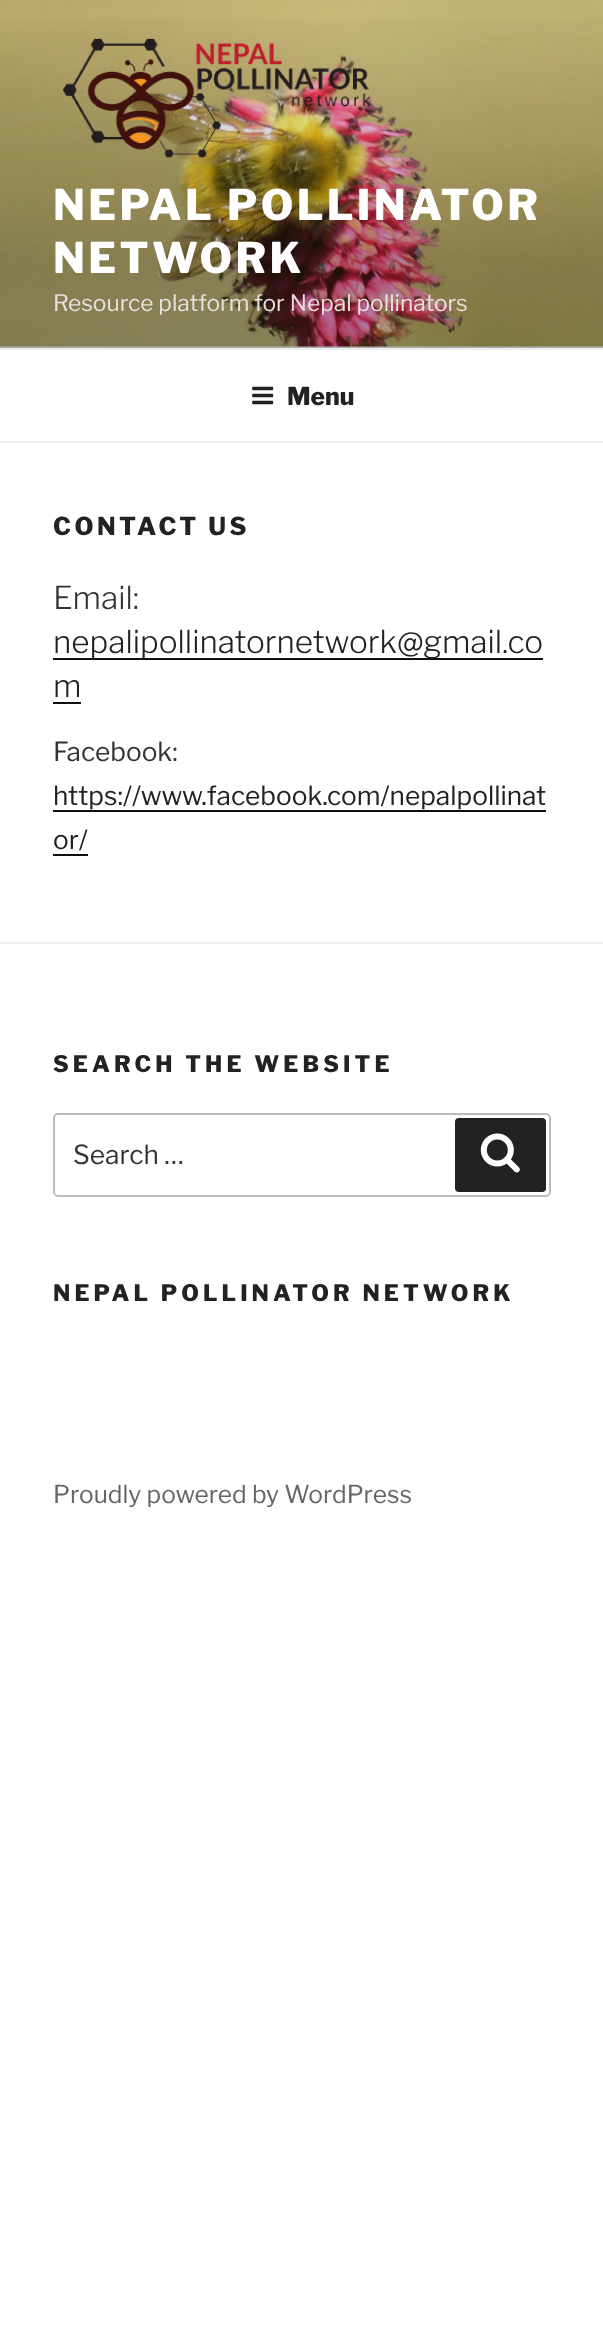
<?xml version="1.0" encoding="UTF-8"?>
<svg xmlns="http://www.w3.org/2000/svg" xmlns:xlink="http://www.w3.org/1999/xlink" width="603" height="2350">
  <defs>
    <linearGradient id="g1" gradientUnits="userSpaceOnUse" x1="302" y1="0" x2="302" y2="348"><stop offset="0" stop-color="#000000" stop-opacity="0" /><stop offset="0.75" stop-color="#000000" stop-opacity="0.3" /><stop offset="1" stop-color="#000000" stop-opacity="0.3" /></linearGradient>
  </defs>
  <rect width="100%" height="100%" fill="#ffffff" />
  <rect y="346" width="603" height="2" fill="#fafafa" />
  <image x="0" y="0" width="603" height="347" xlink:href="image1.png" />
  <rect y="19" width="603" height="329" fill="url(#g1)" />
  <image x="63" y="38" width="308" height="120" xlink:href="image2.png" />
  <rect y="348" width="603" height="2" fill="#eeeeee" />
  <rect y="441" width="603" height="2" fill="#eeeeee" />
  <image x="252" y="386" width="22" height="19" xlink:href="image3.png" />
  <rect x="53" y="658" width="490" height="2" fill="#0f0f0f" />
  <rect x="53" y="702" width="28" height="2" fill="#0f0f0f" />
  <rect x="53" y="810" width="493" height="2" fill="#0f0f0f" />
  <rect x="53" y="854" width="35" height="2" fill="#0f0f0f" />
  <rect y="942" width="603" height="2" fill="#eeeeee" />
  <rect x="54" y="1114" width="496" height="82" rx="4" fill="none" stroke="#bbbbbb" stroke-width="2" />
  <rect x="455" y="1118" width="91" height="74" rx="4" fill="#222222" />
  <image x="480" y="1133" width="40" height="40" xlink:href="image4.png" />
  <text x="53" y="220" style="font-family: Libre Franklin; font-size: 42px; font-weight: 800; letter-spacing: 3.4px; fill: #ffffff">NEPAL POLLINATOR</text>
  <text x="53" y="273" style="font-family: Libre Franklin; font-size: 42px; font-weight: 800; letter-spacing: 3.4px; fill: #ffffff">NETWORK</text>
  <text x="53" y="311" style="font-family: Libre Franklin; font-size: 22.75px; fill: #e7e0dc">Resource platform for Nepal pollinators</text>
  <text x="287" y="405" style="font-family: Libre Franklin; font-size: 24.5px; font-weight: 800; fill: #222222">Menu</text>
  <text x="53" y="535" style="font-family: Libre Franklin; font-size: 24.5px; font-weight: 800; letter-spacing: 3.5px; fill: #222222">CONTACT US</text>
  <text x="53" y="609" style="font-family: Libre Franklin; font-size: 31.5px; font-weight: 300; fill: #333333">Email:</text>
  <text x="53" y="653" style="font-family: Libre Franklin; font-size: 31.5px; font-weight: 300; fill: #222222">nepalipollinatornetwork@gmail.co</text>
  <text x="53" y="697" style="font-family: Libre Franklin; font-size: 31.5px; font-weight: 300; fill: #222222">m</text>
  <text x="53" y="761" style="font-family: Libre Franklin; font-size: 26.25px; fill: #333333">Facebook:</text>
  <text x="53" y="805" style="font-family: Libre Franklin; font-size: 26.25px; fill: #222222">https://www.facebook.com/nepalpollinat</text>
  <text x="53" y="849" style="font-family: Libre Franklin; font-size: 26.25px; fill: #222222">or/</text>
  <text x="53" y="1072" style="font-family: Libre Franklin; font-size: 22.75px; font-weight: 800; letter-spacing: 4.1px; fill: #222222">SEARCH THE WEBSITE</text>
  <text x="73" y="1164" style="font-family: Libre Franklin; font-size: 26.25px; fill: #333333">Search …</text>
  <text x="53" y="1301" style="font-family: Libre Franklin; font-size: 22.75px; font-weight: 800; letter-spacing: 4.1px; fill: #222222">NEPAL POLLINATOR NETWORK</text>
  <text x="53" y="1503" style="font-family: Libre Franklin; font-size: 24.5px; fill: #666666">Proudly powered by WordPress</text>
</svg>
